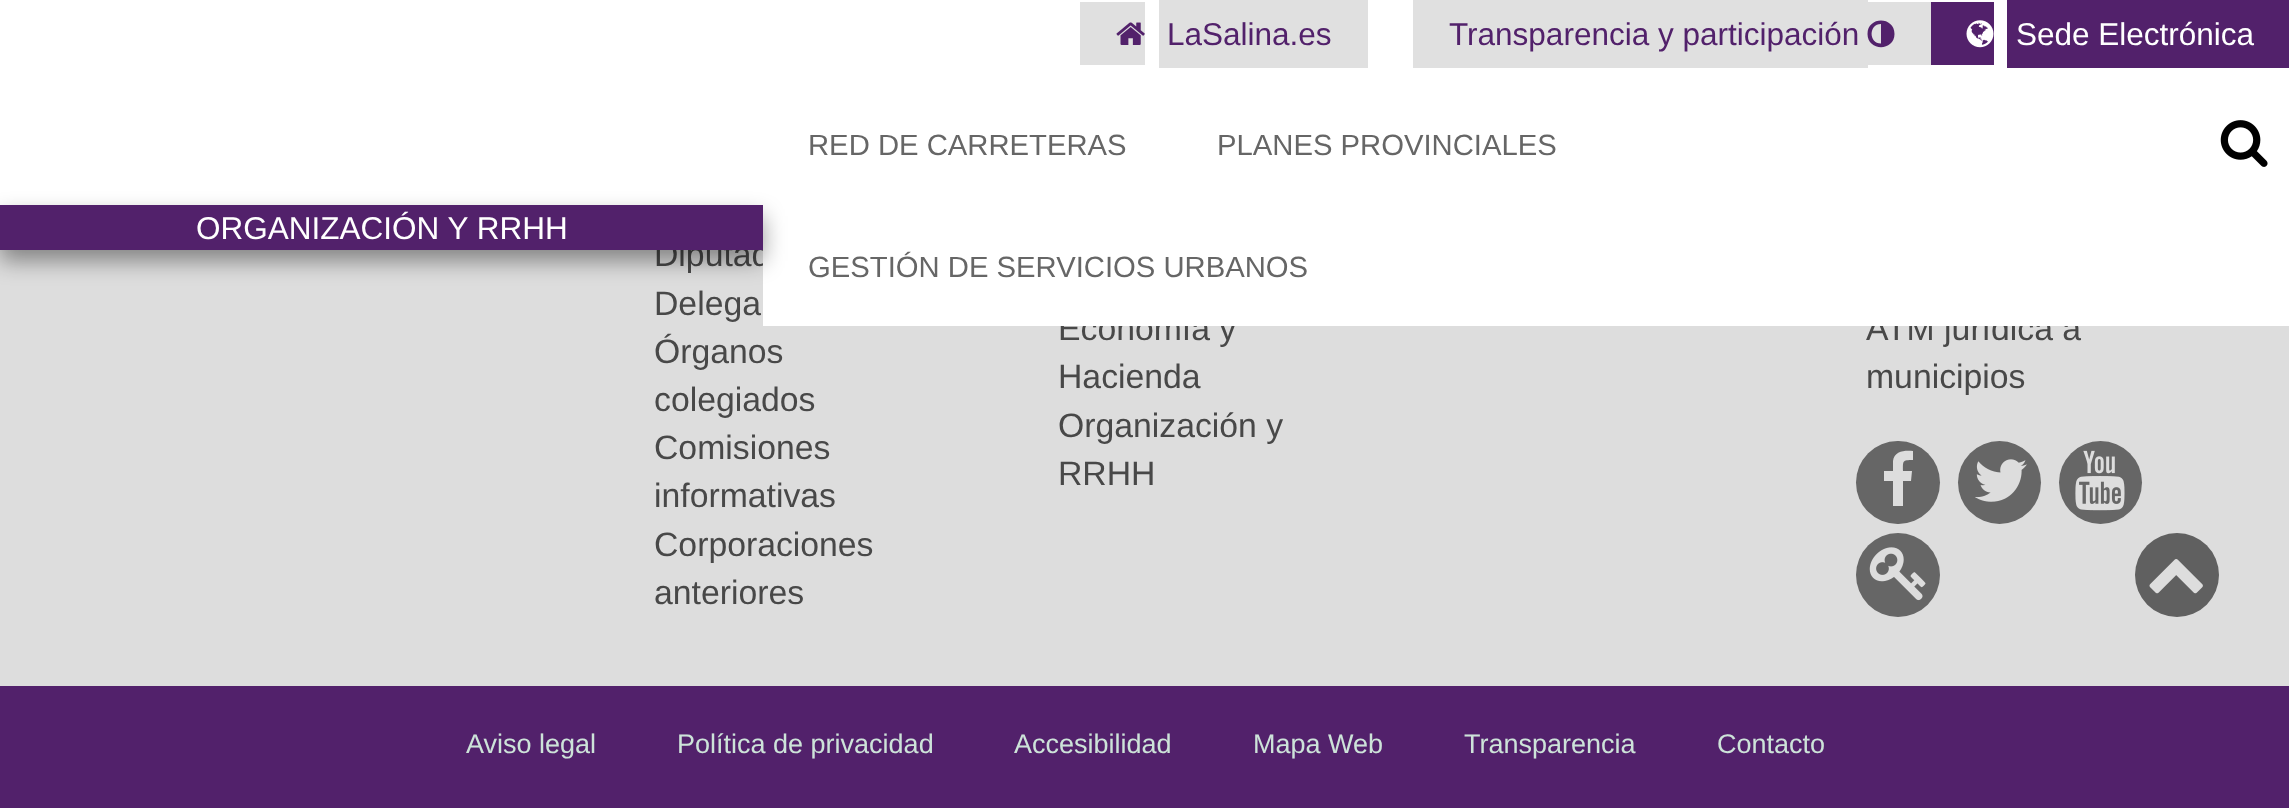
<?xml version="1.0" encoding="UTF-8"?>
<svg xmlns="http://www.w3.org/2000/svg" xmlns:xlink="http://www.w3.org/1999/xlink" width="2289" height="808">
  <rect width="100%" height="100%" fill="#dddddd" />
  <rect width="763" height="205" fill="#ffffff" />
  <rect x="1856" y="441" width="84" height="83" rx="41.5" fill="#666666" />
  <path d="M 1913 451 c -8 -1 -19 0 -20 10 v 10 h -9 v 10 h 9 v 25 h 10 v -25 h 8 l 1 -10 h -9 c 0 -10 -1 -11 10 -11 z" fill="#dddddd" />
  <circle cx="1999.5" cy="482.5" r="41.5" fill="#666666" />
  <image x="1975" y="459" width="52" height="43" xlink:href="image4.png" />
  <circle cx="2100.5" cy="482.5" r="41.5" fill="#666666" />
  <image x="2075" y="450" width="50" height="61" xlink:href="image5.png" />
  <circle cx="1898" cy="575" r="42" fill="#666666" />
  <image x="1869" y="547" width="57" height="54" xlink:href="image6.png" />
  <circle cx="2177" cy="575" r="42" fill="#606060" />
  <image x="2149" y="559" width="54" height="35" xlink:href="image7.png" />
  <rect y="686" width="2289" height="122" fill="#52216b" />
  <text x="654" y="266" style="font-family: Liberation Sans; font-size: 33.75px; fill: #484848">Diputad</text>
  <text x="654" y="315" style="font-family: Liberation Sans; font-size: 33.75px; fill: #484848">Delega</text>
  <text x="654" y="363" style="font-family: Liberation Sans; font-size: 33.75px; fill: #484848">Órganos</text>
  <text x="654" y="411" style="font-family: Liberation Sans; font-size: 33.75px; fill: #484848">colegiados</text>
  <text x="654" y="459" style="font-family: Liberation Sans; font-size: 33.75px; fill: #484848">Comisiones</text>
  <text x="654" y="507" style="font-family: Liberation Sans; font-size: 33.75px; fill: #484848">informativas</text>
  <text x="654" y="556" style="font-family: Liberation Sans; font-size: 33.75px; fill: #484848">Corporaciones</text>
  <text x="654" y="604" style="font-family: Liberation Sans; font-size: 33.75px; fill: #484848">anteriores</text>
  <text x="1058" y="340" style="font-family: Liberation Sans; font-size: 33.75px; fill: #484848">Economía y</text>
  <text x="1058" y="388" style="font-family: Liberation Sans; font-size: 33.75px; fill: #484848">Hacienda</text>
  <text x="1058" y="437" style="font-family: Liberation Sans; font-size: 33.75px; fill: #484848">Organización y</text>
  <text x="1058" y="485" style="font-family: Liberation Sans; font-size: 33.75px; fill: #484848">RRHH</text>
  <text x="1866" y="340" style="font-family: Liberation Sans; font-size: 33.75px; fill: #484848">ATM jurídica a</text>
  <rect x="763" width="1526" height="326" fill="#ffffff" />
  <image x="2220" y="120" width="48" height="47" xlink:href="image3.png" />
  <text x="808" y="277" style="font-family: Liberation Sans; font-size: 29.25px; fill: #666666">GESTIÓN DE SERVICIOS URBANOS</text>
  <text x="1217" y="155" style="font-family: Liberation Sans; font-size: 29.25px; fill: #666666">PLANES PROVINCIALES</text>
  <text x="808" y="155" style="font-family: Liberation Sans; font-size: 29.25px; fill: #666666">RED DE CARRETERAS</text>
  <rect y="216" width="763" height="45" fill="#000000" fill-opacity="0.4" filter="blur(11px)" />
  <rect y="205" width="763" height="45" fill="#52216b" />
  <text x="196" y="239" style="font-family: Liberation Sans; font-size: 31.5px; fill: #ffffff">ORGANIZACIÓN Y RRHH</text>
  <rect x="1159" width="209" height="68" fill="#e0e0e0" />
  <text x="1167" y="45" style="font-family: Liberation Sans; font-size: 31.5px; fill: #52216b">LaSalina.es</text>
  <rect x="1080" y="2" width="65" height="63" fill="#e0e0e0" />
  <image x="1116" y="22" width="29" height="23" xlink:href="image1.png" />
  <rect x="1868" y="2" width="63" height="63" fill="#e0e0e0" />
  <rect x="1413" width="455" height="68" fill="#e0e0e0" />
  <path d="M 1881 43.5 c -12.5 0 -12.5 -19.5 0 -19.5 z m 13.5 -9.5 c 0 -18 -27 -18 -27 0 c 0 17.5 27 17.5 27 0 z" fill="#52216b" />
  <text x="1449" y="45" style="font-family: Liberation Sans; font-size: 31.5px; fill: #52216b">Transparencia y participación</text>
  <rect x="2007" width="282" height="68" fill="#52216b" />
  <text x="2016" y="45" style="font-family: Liberation Sans; font-size: 31.5px; fill: #ffffff">Sede Electrónica</text>
  <rect x="1931" y="2" width="63" height="63" fill="#52216b" />
  <image x="1966" y="20" width="28" height="28" xlink:href="image2.png" />
  <text x="1866" y="388" style="font-family: Liberation Sans; font-size: 33.75px; fill: #484848">municipios</text>
  <text x="466" y="753" style="font-family: Liberation Sans; font-size: 27px; fill: #cde3d9">Aviso legal</text>
  <text x="677" y="753" style="font-family: Liberation Sans; font-size: 27px; fill: #cde3d9">Política de privacidad</text>
  <text x="1014" y="753" style="font-family: Liberation Sans; font-size: 27px; fill: #cde3d9">Accesibilidad</text>
  <text x="1253" y="753" style="font-family: Liberation Sans; font-size: 27px; fill: #cde3d9">Mapa Web</text>
  <text x="1464" y="753" style="font-family: Liberation Sans; font-size: 27px; fill: #cde3d9">Transparencia</text>
  <text x="1717" y="753" style="font-family: Liberation Sans; font-size: 27px; fill: #cde3d9">Contacto</text>
</svg>
